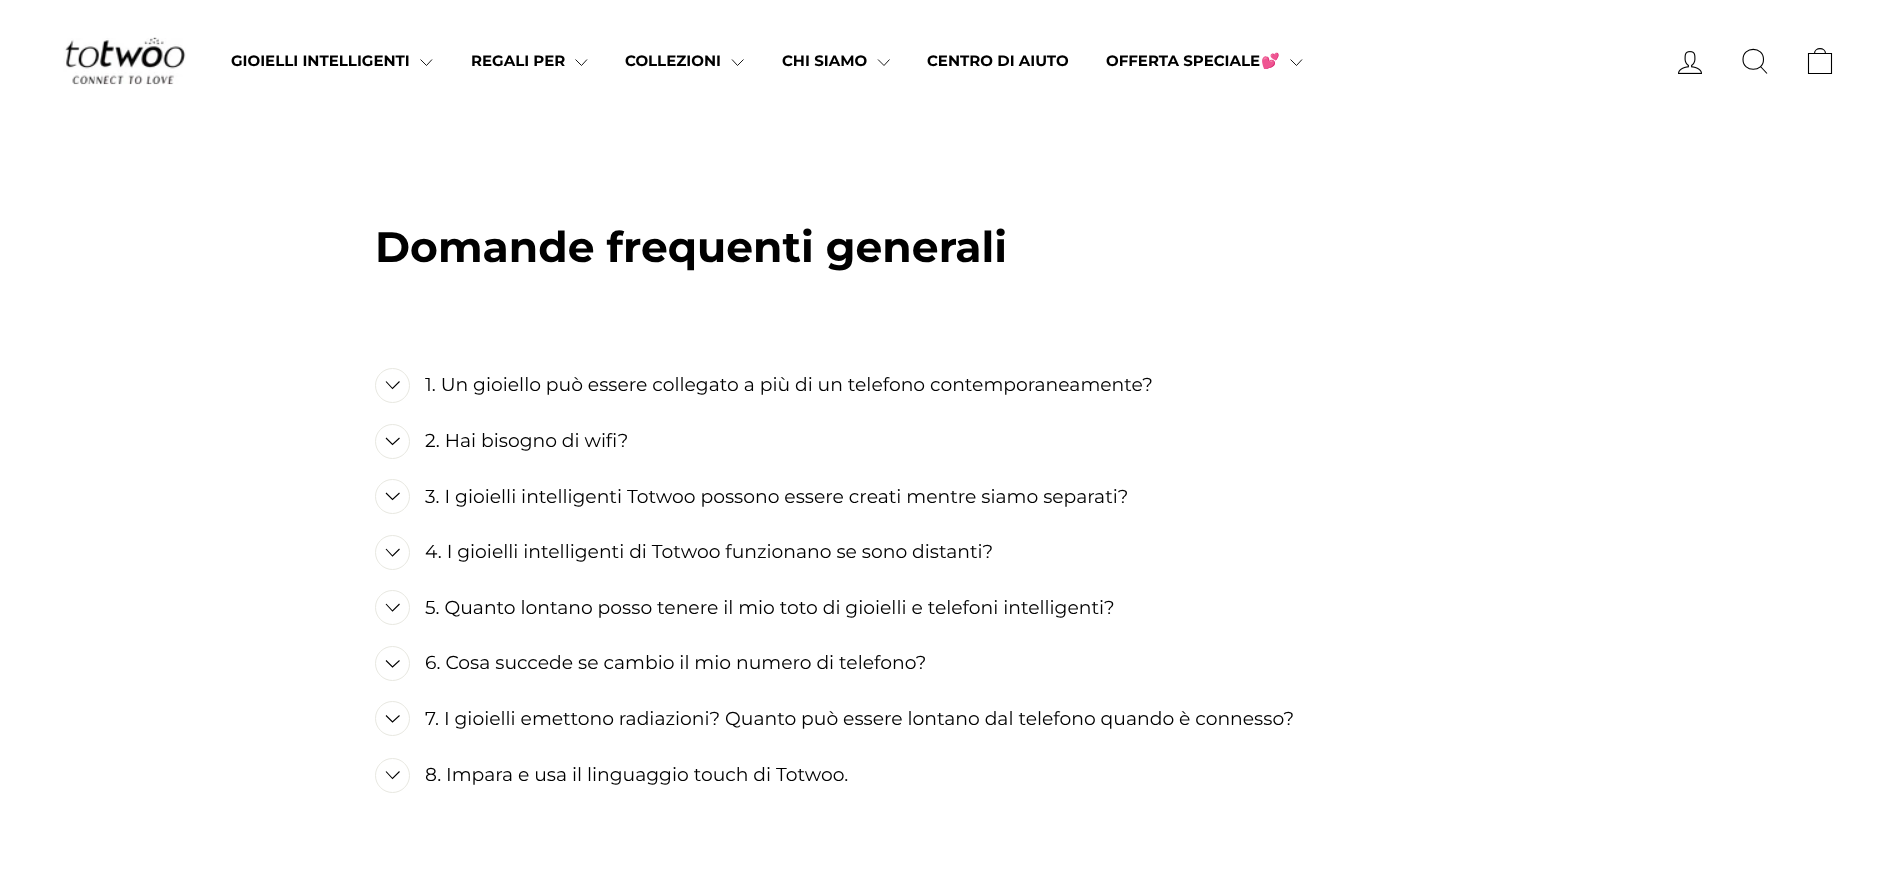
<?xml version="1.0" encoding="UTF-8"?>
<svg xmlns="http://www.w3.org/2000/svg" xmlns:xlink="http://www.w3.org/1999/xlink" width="1899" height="888">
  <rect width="100%" height="100%" fill="#ffffff" />
  <image x="63" y="37" width="123" height="48" xlink:href="image1.png" />
  <path d="M 420.5 59.5 l 6 6 l 5.5 -6" fill="none" stroke="#000000" stroke-width="0.9" />
  <path d="M 575.5 59.5 l 6 6 l 5.5 -6" fill="none" stroke="#000000" stroke-width="0.9" />
  <path d="M 732 59.5 l 5.5 6 l 6 -6" fill="none" stroke="#000000" stroke-width="0.9" />
  <path d="M 878 59.5 l 6 6 l 5.5 -6" fill="none" stroke="#000000" stroke-width="0.9" />
  <path d="M 1290.5 59.5 l 6 6 l 5.5 -6" fill="none" stroke="#000000" stroke-width="0.9" />
  <image x="1678" y="51" width="24" height="23" xlink:href="image2.png" />
  <path d="M 1763.5 59.5 c 0 13 -20.5 13 -20.5 0 c 0 -13.5 20.5 -13.5 20.5 0 z m 3.5 14 l -6.5 -7" fill="none" stroke="#000000" stroke-width="1.1" />
  <path d="M 1808.5 53.5 h 23 v 20 h -23 z m 6 0 c 0 -6.5 11 -6.5 11 0" fill="none" stroke="#000000" stroke-width="1.1" />
  <circle cx="392.5" cy="385.5" r="17" fill="none" stroke="#e8e8e1" />
  <path d="M 386 381.5 l 6.5 7 l 7 -7" fill="none" stroke="#000000" stroke-width="1.1" />
  <circle cx="392.5" cy="441.5" r="17" fill="none" stroke="#e8e8e1" />
  <path d="M 386 438 l 6.5 6.5 l 7 -6.5" fill="none" stroke="#000000" stroke-width="1.1" />
  <circle cx="392.5" cy="496.5" r="17" fill="none" stroke="#e8e8e1" />
  <path d="M 386 493 l 6.5 6.5 l 7 -6.5" fill="none" stroke="#000000" stroke-width="1.1" />
  <circle cx="392.5" cy="552.5" r="17" fill="none" stroke="#e8e8e1" />
  <path d="M 386 549 l 6.5 7 l 7 -7" fill="none" stroke="#000000" stroke-width="1.1" />
  <circle cx="392.5" cy="607.5" r="17" fill="none" stroke="#e8e8e1" />
  <path d="M 386 604 l 6.5 7 l 7 -7" fill="none" stroke="#000000" stroke-width="1.1" />
  <circle cx="392.5" cy="663.5" r="17" fill="none" stroke="#e8e8e1" />
  <path d="M 386 660.5 l 6.5 6.5 l 7 -6.5" fill="none" stroke="#000000" stroke-width="1.1" />
  <circle cx="392.5" cy="718.5" r="17" fill="none" stroke="#e8e8e1" />
  <path d="M 386 715.5 l 6.5 6.5 l 7 -6.5" fill="none" stroke="#000000" stroke-width="1.1" />
  <circle cx="392.5" cy="775.5" r="17" fill="none" stroke="#e8e8e1" />
  <path d="M 386 771.5 l 6.5 7 l 7 -7" fill="none" stroke="#000000" stroke-width="1.1" />
  <text x="231" y="66" style="font-family: Montserrat; font-size: 15px; font-weight: bold; fill: #000000">GIOIELLI INTELLIGENTI</text>
  <text x="471" y="66" style="font-family: Montserrat; font-size: 15px; font-weight: bold; fill: #000000">REGALI PER</text>
  <text x="625" y="66" style="font-family: Montserrat; font-size: 15px; font-weight: bold; fill: #000000">COLLEZIONI</text>
  <text x="782" y="66" style="font-family: Montserrat; font-size: 15px; font-weight: bold; fill: #000000">CHI SIAMO</text>
  <text x="927" y="66" style="font-family: Montserrat; font-size: 15px; font-weight: bold; fill: #000000">CENTRO DI AIUTO</text>
  <text x="1106" y="66" style="font-family: Montserrat; font-size: 15px; font-weight: bold; fill: #000000">OFFERTA SPECIALE</text>
  <text x="1261" y="66" style="font-family: Noto Color Emoji; font-size: 15px; font-weight: bold; fill: #000000">💕</text>
  <text x="375" y="262" style="font-family: Montserrat; font-size: 42.5px; font-weight: bold; fill: #000000">Domande frequenti generali</text>
  <text x="425" y="391" style="font-family: Montserrat; font-size: 18.75px; fill: #000000">1. Un gioiello può essere collegato a più di un telefono contemporaneamente?</text>
  <text x="425" y="447" style="font-family: Montserrat; font-size: 18.75px; fill: #000000">2. Hai bisogno di wifi?</text>
  <text x="425" y="503" style="font-family: Montserrat; font-size: 18.75px; fill: #000000">3. I gioielli intelligenti Totwoo possono essere creati mentre siamo separati?</text>
  <text x="425" y="558" style="font-family: Montserrat; font-size: 18.75px; fill: #000000">4. I gioielli intelligenti di Totwoo funzionano se sono distanti?</text>
  <text x="425" y="614" style="font-family: Montserrat; font-size: 18.75px; fill: #000000">5. Quanto lontano posso tenere il mio toto di gioielli e telefoni intelligenti?</text>
  <text x="425" y="669" style="font-family: Montserrat; font-size: 18.75px; fill: #000000">6. Cosa succede se cambio il mio numero di telefono?</text>
  <text x="425" y="725" style="font-family: Montserrat; font-size: 18.75px; fill: #000000">7. I gioielli emettono radiazioni? Quanto può essere lontano dal telefono quando è connesso?</text>
  <text x="425" y="781" style="font-family: Montserrat; font-size: 18.75px; fill: #000000">8. Impara e usa il linguaggio touch di Totwoo.</text>
</svg>
